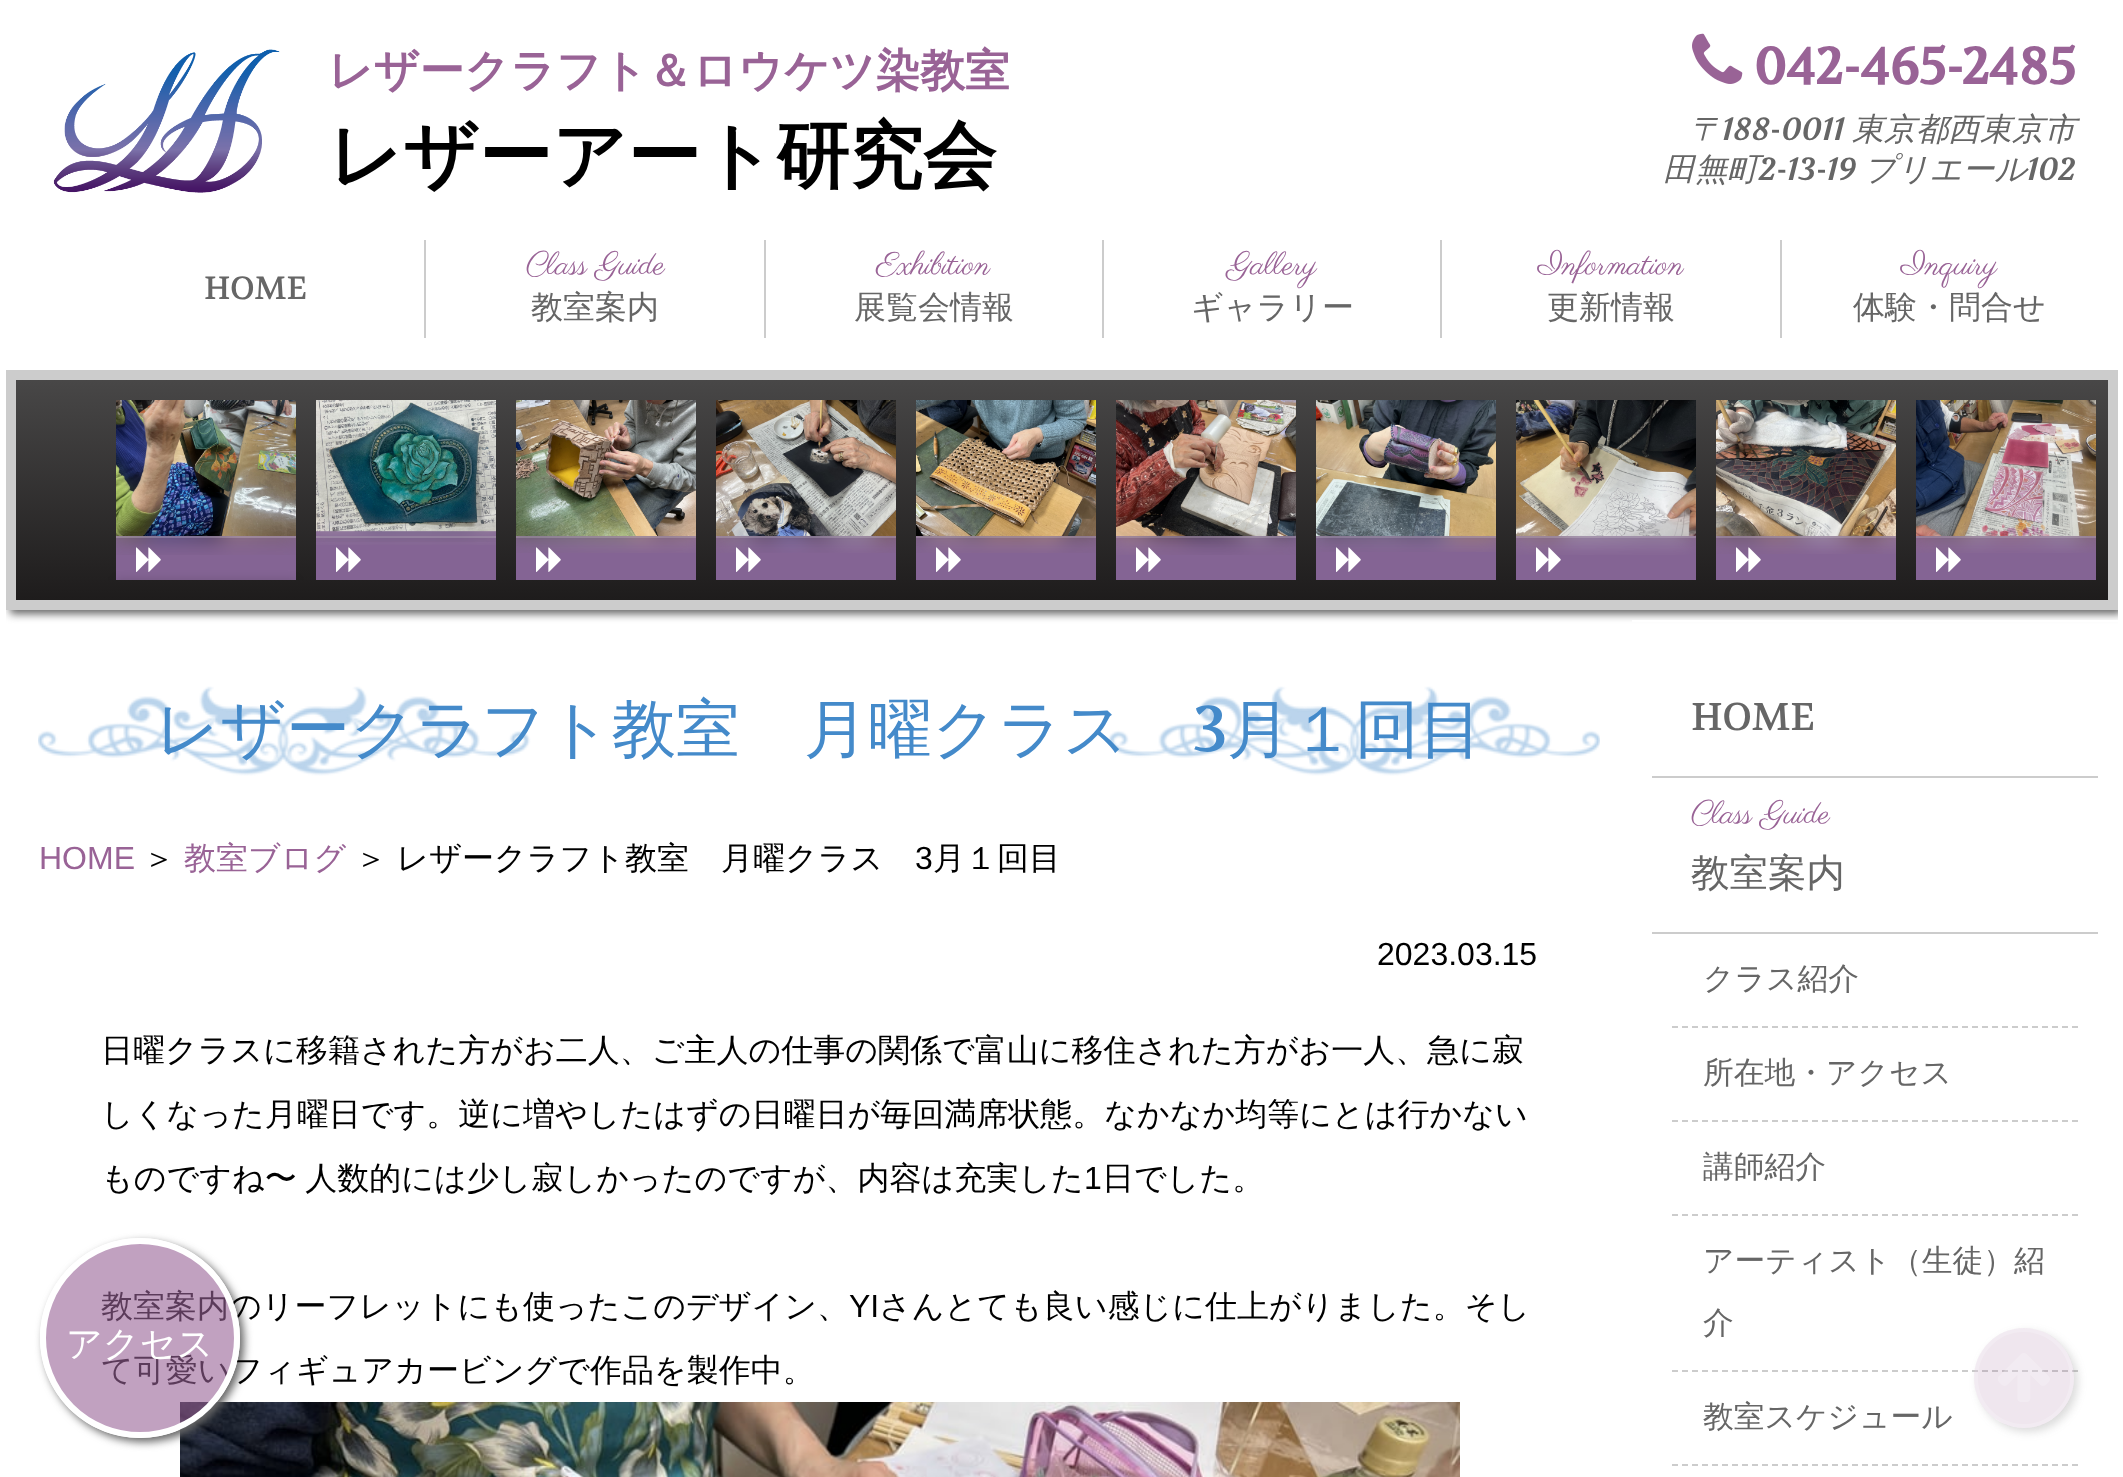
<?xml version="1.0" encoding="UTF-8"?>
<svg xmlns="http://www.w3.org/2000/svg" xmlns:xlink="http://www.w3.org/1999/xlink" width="2123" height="1477">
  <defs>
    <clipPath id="clip1"><rect x="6" y="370" width="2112" height="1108" /></clipPath>
    <linearGradient id="g1" gradientUnits="userSpaceOnUse" x1="1062" y1="380" x2="1062" y2="600"><stop offset="0" stop-color="#484747" /><stop offset="1" stop-color="#1e1c1c" /></linearGradient>
    <clipPath id="clip2"><rect x="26" y="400" width="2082" height="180" /></clipPath>
    <clipPath id="clip3"><rect x="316" y="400" width="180" height="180" /></clipPath>
    <clipPath id="clip4"><rect x="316" y="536" width="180" height="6" /></clipPath>
    <clipPath id="clip5"><rect x="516" y="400" width="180" height="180" /></clipPath>
    <clipPath id="clip6"><rect x="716" y="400" width="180" height="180" /></clipPath>
    <clipPath id="clip7"><rect x="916" y="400" width="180" height="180" /></clipPath>
    <clipPath id="clip8"><rect x="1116" y="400" width="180" height="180" /></clipPath>
    <clipPath id="clip9"><rect x="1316" y="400" width="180" height="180" /></clipPath>
    <clipPath id="clip10"><rect x="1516" y="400" width="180" height="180" /></clipPath>
    <clipPath id="clip11"><rect x="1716" y="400" width="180" height="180" /></clipPath>
    <clipPath id="clip12"><rect x="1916" y="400" width="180" height="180" /></clipPath>
    <clipPath id="clip13"><path d="M 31 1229 h 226 v 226 h -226 z m 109 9 c 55 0 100 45 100 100 c 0 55 -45 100 -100 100 c -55 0 -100 -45 -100 -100 c 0 -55 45 -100 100 -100 z" clip-rule="evenodd" /></clipPath>
    <clipPath id="clip14"><path d="M 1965 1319 h 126 v 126 h -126 z m 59 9 c 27.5 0 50 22.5 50 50 c 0 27.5 -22.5 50 -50 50 c -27.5 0 -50 -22.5 -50 -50 c 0 -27.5 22.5 -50 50 -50 z" clip-rule="evenodd" /></clipPath>
  </defs>
  <rect width="100%" height="100%" fill="#ffffff" />
  <image x="53" y="49" width="227" height="144" xlink:href="image1.png" />
  <image x="1692" y="33" width="51" height="51" xlink:href="image2.png" />
  <rect x="424" y="240" width="2" height="98" fill="#cccccc" />
  <rect x="764" y="240" width="2" height="98" fill="#cccccc" />
  <rect x="1102" y="240" width="2" height="98" fill="#cccccc" />
  <rect x="1440" y="240" width="2" height="98" fill="#cccccc" />
  <rect x="1780" y="240" width="2" height="98" fill="#cccccc" />
  <g clip-path="url(#clip1)">
    <rect x="10" y="374" width="2112" height="240" fill="#666666" filter="blur(4px)" />
  </g>
  <rect x="16" y="380" width="2092" height="220" fill="url(#g1)" />
  <rect x="11" y="375" width="2102" height="230" fill="none" stroke="#cccccc" stroke-width="10" />
  <rect x="116" y="536" width="180" height="44" fill="#846494" />
  <image x="116" y="536" width="180" height="19" xlink:href="image4.png" />
  <rect x="116" y="536" width="180" height="2" fill="#ffffff" fill-opacity="0.2" />
  <image x="116" y="400" width="180" height="136" xlink:href="image3.png" />
  <g clip-path="url(#clip2)">
    <rect x="116" y="580" width="180" height="180" fill="#000000" fill-opacity="0.15" filter="blur(5px)" />
  </g>
  <image x="136" y="547" width="25" height="25" xlink:href="image5.png" />
  <rect x="316" y="531" width="180" height="49" fill="#846494" />
  <image x="316" y="531" width="180" height="14" xlink:href="image7.png" />
  <rect x="316" y="536" width="180" height="2" fill="#ffffff" fill-opacity="0.2" />
  <g clip-path="url(#clip3)">
    <g clip-path="url(#clip4)">
      <rect x="316" y="402" width="180" height="136" fill="#000000" fill-opacity="0.1" filter="blur(5px)" />
    </g>
  </g>
  <image x="316" y="400" width="180" height="132" xlink:href="image6.png" />
  <image x="336" y="547" width="25" height="25" xlink:href="image8.png" />
  <rect x="516" y="536" width="180" height="44" fill="#846494" />
  <image x="516" y="536" width="180" height="17" xlink:href="image10.png" />
  <rect x="516" y="536" width="180" height="2" fill="#ffffff" fill-opacity="0.2" />
  <g clip-path="url(#clip5)">
    <rect x="516" y="402" width="180" height="136" fill="#000000" fill-opacity="0.1" filter="blur(5px)" />
  </g>
  <image x="516" y="400" width="180" height="136" xlink:href="image9.png" />
  <image x="536" y="547" width="25" height="25" xlink:href="image11.png" />
  <rect x="716" y="536" width="180" height="44" fill="#846494" />
  <image x="716" y="536" width="180" height="17" xlink:href="image13.png" />
  <rect x="716" y="536" width="180" height="2" fill="#ffffff" fill-opacity="0.2" />
  <g clip-path="url(#clip6)">
    <rect x="716" y="402" width="180" height="136" fill="#000000" fill-opacity="0.1" filter="blur(5px)" />
  </g>
  <image x="716" y="400" width="180" height="136" xlink:href="image12.png" />
  <image x="736" y="547" width="25" height="25" xlink:href="image14.png" />
  <rect x="916" y="536" width="180" height="44" fill="#846494" />
  <image x="916" y="536" width="180" height="17" xlink:href="image16.png" />
  <rect x="916" y="536" width="180" height="2" fill="#ffffff" fill-opacity="0.2" />
  <g clip-path="url(#clip7)">
    <rect x="916" y="402" width="180" height="136" fill="#000000" fill-opacity="0.1" filter="blur(5px)" />
  </g>
  <image x="916" y="400" width="180" height="136" xlink:href="image15.png" />
  <image x="936" y="547" width="25" height="25" xlink:href="image17.png" />
  <rect x="1116" y="536" width="180" height="44" fill="#846494" />
  <image x="1116" y="536" width="180" height="19" xlink:href="image19.png" />
  <rect x="1116" y="536" width="180" height="2" fill="#ffffff" fill-opacity="0.2" />
  <g clip-path="url(#clip8)">
    <rect x="1116" y="402" width="180" height="136" fill="#000000" fill-opacity="0.1" filter="blur(5px)" />
  </g>
  <image x="1116" y="400" width="180" height="136" xlink:href="image18.png" />
  <image x="1136" y="547" width="25" height="25" xlink:href="image20.png" />
  <rect x="1316" y="536" width="180" height="44" fill="#846494" />
  <image x="1316" y="536" width="180" height="16" xlink:href="image22.png" />
  <rect x="1316" y="536" width="180" height="2" fill="#ffffff" fill-opacity="0.2" />
  <g clip-path="url(#clip9)">
    <rect x="1316" y="402" width="180" height="136" fill="#000000" fill-opacity="0.1" filter="blur(5px)" />
  </g>
  <image x="1316" y="400" width="180" height="136" xlink:href="image21.png" />
  <image x="1336" y="547" width="25" height="25" xlink:href="image23.png" />
  <rect x="1516" y="536" width="180" height="44" fill="#846494" />
  <image x="1516" y="536" width="180" height="19" xlink:href="image25.png" />
  <rect x="1516" y="536" width="180" height="2" fill="#ffffff" fill-opacity="0.2" />
  <g clip-path="url(#clip10)">
    <rect x="1516" y="402" width="180" height="136" fill="#000000" fill-opacity="0.1" filter="blur(5px)" />
  </g>
  <image x="1516" y="400" width="180" height="136" xlink:href="image24.png" />
  <image x="1536" y="547" width="25" height="25" xlink:href="image26.png" />
  <rect x="1716" y="536" width="180" height="44" fill="#846494" />
  <image x="1716" y="536" width="180" height="18" xlink:href="image28.png" />
  <rect x="1716" y="536" width="180" height="2" fill="#ffffff" fill-opacity="0.2" />
  <g clip-path="url(#clip11)">
    <rect x="1716" y="402" width="180" height="136" fill="#000000" fill-opacity="0.1" filter="blur(5px)" />
  </g>
  <image x="1716" y="400" width="180" height="136" xlink:href="image27.png" />
  <image x="1736" y="547" width="25" height="25" xlink:href="image29.png" />
  <rect x="1916" y="536" width="180" height="44" fill="#846494" />
  <image x="1916" y="536" width="180" height="17" xlink:href="image31.png" />
  <rect x="1916" y="536" width="180" height="2" fill="#ffffff" fill-opacity="0.2" />
  <g clip-path="url(#clip12)">
    <rect x="1916" y="402" width="180" height="136" fill="#000000" fill-opacity="0.1" filter="blur(5px)" />
  </g>
  <image x="1916" y="400" width="180" height="136" xlink:href="image30.png" />
  <image x="1936" y="547" width="25" height="25" xlink:href="image32.png" />
  <image x="38" y="686" width="1562" height="90" xlink:href="image33.png" />
  <image x="180" y="1402" width="1280" height="75" xlink:href="image34.png" />
  <rect x="1632" y="620" width="486" height="2" fill="#ffffff" />
  <rect x="1652" y="776" width="446" height="2" fill="#cccccc" />
  <rect x="1652" y="932" width="446" height="2" fill="#cccccc" />
  <path d="M 1672 1027 h 406" fill="none" stroke="#cccccc" stroke-width="2" stroke-dasharray="6 4" />
  <path d="M 1672 1121 h 406" fill="none" stroke="#cccccc" stroke-width="2" stroke-dasharray="6 4" />
  <path d="M 1672 1215 h 406" fill="none" stroke="#cccccc" stroke-width="2" stroke-dasharray="6 4" />
  <path d="M 1672 1371 h 406" fill="none" stroke="#cccccc" stroke-width="2" stroke-dasharray="6 4" />
  <path d="M 1672 1465 h 406" fill="none" stroke="#cccccc" stroke-width="2" stroke-dasharray="6 4" />
  <g clip-path="url(#clip13)">
    <rect x="44" y="1242" width="200" height="200" rx="100" fill="#666666" filter="blur(4px)" />
  </g>
  <g clip-path="url(#clip14)">
    <rect x="1978" y="1332" width="100" height="100" rx="50" fill="#666666" fill-opacity="0.23" filter="blur(4px)" />
  </g>
  <circle cx="2024" cy="1378" r="50" fill="#996396" fill-opacity="0.16" />
  <circle cx="2024" cy="1378" r="48" fill="none" stroke="#ffffff" stroke-opacity="0.23" stroke-width="4" />
  <image x="1998" y="1353" width="52" height="49" xlink:href="image35.png" />
  <text x="328" y="86" style="font-family: WenQuanYi Zen Hei; font-size: 44.75px; font-weight: bold; fill: #996396">レザークラフト＆ロウケツ染教室</text>
  <text x="328" y="181" style="font-family: WenQuanYi Zen Hei; font-size: 73.5px; font-weight: bold; fill: #000000">レザーアート研究会</text>
  <text x="1754" y="84" style="font-family: Volkhov; font-size: 51.25px; font-weight: bold; fill: #996396">042-465-2485</text>
  <text x="1690" y="140" style="font-family: WenQuanYi Zen Hei; font-size: 32px; font-weight: 500; font-style: italic; fill: #666666">〒</text>
  <text x="1722" y="140" style="font-family: Volkhov; font-size: 32px; font-weight: bold; font-style: italic; fill: #666666">188-0011</text>
  <text x="1852" y="140" style="font-family: WenQuanYi Zen Hei; font-size: 32px; font-weight: 500; font-style: italic; fill: #666666">東京都西東京市</text>
  <text x="1663" y="180" style="font-family: WenQuanYi Zen Hei; font-size: 32px; font-weight: 500; font-style: italic; fill: #666666">田無町</text>
  <text x="1759" y="180" style="font-family: Volkhov; font-size: 32px; font-weight: bold; font-style: italic; fill: #666666">2-13-19</text>
  <text x="1864" y="180" style="font-family: WenQuanYi Zen Hei; font-size: 32px; font-weight: 500; font-style: italic; fill: #666666">プリエール</text>
  <text x="2027" y="180" style="font-family: Volkhov; font-size: 32px; font-weight: bold; font-style: italic; fill: #666666">102</text>
  <text x="204" y="299" style="font-family: Volkhov; font-size: 32px; fill: #666666">HOME</text>
  <text x="526" y="274" style="font-family: Parisienne; font-size: 32px; fill: #996396">Class Guide</text>
  <text x="531" y="318" style="font-family: WenQuanYi Zen Hei; font-size: 32px; font-weight: 500; fill: #666666">教室案内</text>
  <text x="876" y="274" style="font-family: Parisienne; font-size: 32px; fill: #996396">Exhibition</text>
  <text x="854" y="318" style="font-family: WenQuanYi Zen Hei; font-size: 32px; font-weight: 500; fill: #666666">展覧会情報</text>
  <text x="1228" y="274" style="font-family: Parisienne; font-size: 32px; fill: #996396">Gallery</text>
  <text x="1191" y="318" style="font-family: WenQuanYi Zen Hei; font-size: 32px; font-weight: 500; fill: #666666">ギャラリー</text>
  <text x="1538" y="274" style="font-family: Parisienne; font-size: 32px; fill: #996396">Information</text>
  <text x="1547" y="318" style="font-family: WenQuanYi Zen Hei; font-size: 32px; font-weight: 500; fill: #666666">更新情報</text>
  <text x="1901" y="274" style="font-family: Parisienne; font-size: 32px; fill: #996396">Inquiry</text>
  <text x="1853" y="318" style="font-family: WenQuanYi Zen Hei; font-size: 32px; font-weight: 500; fill: #666666">体験・問合せ</text>
  <text x="155" y="751" style="font-family: WenQuanYi Zen Hei; font-size: 64px; font-weight: 500; fill: #448aca">レザークラフト教室　月曜クラス</text>
  <text x="1193" y="751" style="font-family: Volkhov; font-size: 64px; fill: #448aca">3</text>
  <text x="1227" y="751" style="font-family: WenQuanYi Zen Hei; font-size: 64px; font-weight: 500; fill: #448aca">月１回目</text>
  <text x="39" y="869" style="font-family: Liberation Sans; font-size: 32px; fill: #996396">HOME</text>
  <text x="143" y="869" style="font-family: WenQuanYi Zen Hei; font-size: 32px; font-weight: 500; fill: #000000">＞</text>
  <text x="184" y="869" style="font-family: WenQuanYi Zen Hei; font-size: 32px; font-weight: 500; fill: #996396">教室ブログ</text>
  <text x="355" y="869" style="font-family: WenQuanYi Zen Hei; font-size: 32px; font-weight: 500; fill: #000000">＞ レザークラフト教室　月曜クラス</text>
  <text x="915" y="869" style="font-family: Liberation Sans; font-size: 32px; fill: #000000">3</text>
  <text x="933" y="869" style="font-family: WenQuanYi Zen Hei; font-size: 32px; font-weight: 500; fill: #000000">月１回目</text>
  <text x="1377" y="965" style="font-family: Liberation Sans; font-size: 32px; fill: #000000">2023.03.15</text>
  <text x="101" y="1061" style="font-family: WenQuanYi Zen Hei; font-size: 32px; font-weight: 500; fill: #000000">日曜クラスに移籍された方がお二人、ご主人の仕事の関係で富山に移住された方がお一人、急に寂</text>
  <text x="101" y="1125" style="font-family: WenQuanYi Zen Hei; font-size: 32px; font-weight: 500; fill: #000000">しくなった月曜日です。逆に増やしたはずの日曜日が毎回満席状態。なかなか均等にとは行かない</text>
  <text x="101" y="1189" word-spacing="-1" style="font-family: WenQuanYi Zen Hei; font-size: 32px; font-weight: 500; fill: #000000">ものですね〜 人数的には少し寂しかったのですが、内容は充実した</text>
  <text x="1084" y="1189" style="font-family: Liberation Sans; font-size: 32px; fill: #000000">1</text>
  <text x="1102" y="1189" style="font-family: WenQuanYi Zen Hei; font-size: 32px; font-weight: 500; fill: #000000">日でした。</text>
  <text x="101" y="1317" style="font-family: WenQuanYi Zen Hei; font-size: 32px; font-weight: 500; fill: #000000">教室案内のリーフレットにも使ったこのデザイン、</text>
  <text x="849" y="1317" style="font-family: Liberation Sans; font-size: 32px; fill: #000000">YI</text>
  <text x="879" y="1317" style="font-family: WenQuanYi Zen Hei; font-size: 32px; font-weight: 500; fill: #000000">さんとても良い感じに仕上がりました。そし</text>
  <text x="101" y="1381" style="font-family: WenQuanYi Zen Hei; font-size: 32px; font-weight: 500; fill: #000000">て可愛いフィギュアカービングで作品を製作中。</text>
  <text x="1691" y="730" style="font-family: Volkhov; font-size: 38.5px; fill: #666666">HOME</text>
  <text x="1691" y="823" style="font-family: Parisienne; font-size: 32px; fill: #996396">Class Guide</text>
  <text x="1691" y="886" style="font-family: WenQuanYi Zen Hei; font-size: 38.5px; font-weight: 500; fill: #666666">教室案内</text>
  <text x="1703" y="989" style="font-family: WenQuanYi Zen Hei; font-size: 30.75px; font-weight: 500; fill: #666666">クラス紹介</text>
  <text x="1703" y="1083" style="font-family: WenQuanYi Zen Hei; font-size: 30.75px; font-weight: 500; fill: #666666">所在地・アクセス</text>
  <text x="1703" y="1177" style="font-family: WenQuanYi Zen Hei; font-size: 30.75px; font-weight: 500; fill: #666666">講師紹介</text>
  <text x="1703" y="1271" style="font-family: WenQuanYi Zen Hei; font-size: 30.75px; font-weight: 500; fill: #666666">アーティスト（生徒）紹</text>
  <text x="1703" y="1333" style="font-family: WenQuanYi Zen Hei; font-size: 30.75px; font-weight: 500; fill: #666666">介</text>
  <text x="1703" y="1427" style="font-family: WenQuanYi Zen Hei; font-size: 30.75px; font-weight: 500; fill: #666666">教室スケジュール</text>
  <circle cx="140" cy="1338" r="97" fill="#986396" fill-opacity="0.6" stroke="#ffffff" stroke-width="6" />
  <text x="66" y="1356" style="font-family: WenQuanYi Zen Hei; font-size: 36px; font-weight: 500; fill: #ffffff">アクセス</text>
</svg>
